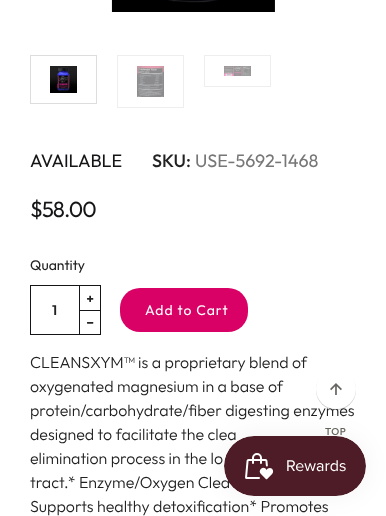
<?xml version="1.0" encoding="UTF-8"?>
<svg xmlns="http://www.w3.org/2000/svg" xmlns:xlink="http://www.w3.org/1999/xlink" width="386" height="516">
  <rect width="100%" height="100%" fill="#ffffff" />
  <image x="111" y="0" width="164" height="12" xlink:href="image1.png" />
  <rect x="30.5" y="55.5" width="66" height="48" fill="none" stroke="#dddddd" />
  <image x="50" y="66" width="27" height="27" xlink:href="image2.png" />
  <rect x="117.5" y="55.5" width="66" height="52" fill="none" stroke="#eeeeee" />
  <image x="137" y="66" width="27" height="31" xlink:href="image3.png" />
  <rect x="204.5" y="55.5" width="66" height="31" fill="none" stroke="#eeeeee" />
  <image x="224" y="66" width="27" height="10" xlink:href="image4.png" />
  <rect x="30.5" y="285.5" width="49" height="49" fill="none" stroke="#151416" />
  <rect x="79.5" y="309.5" width="21" height="25" fill="none" stroke="#151416" />
  <rect x="80" y="309" width="20" height="1" fill="#ffffff" />
  <rect x="79.5" y="285.5" width="21" height="25" fill="none" stroke="#151416" />
  <image x="87" y="295" width="7" height="7" xlink:href="image5.png" />
  <image x="87" y="322" width="7" height="2" xlink:href="image6.png" />
  <rect x="120" y="288" width="128" height="44" rx="20" fill="#d90166" />
  <rect x="316" y="370" width="40" height="40" rx="20" fill="#000000" fill-opacity="0.2" filter="blur(0.5px)" />
  <text x="30" y="167" style="font-family: Outfit; font-size: 18px; fill: #151416">AVAILABLE</text>
  <text x="152" y="167" style="font-family: Outfit; font-size: 18px; font-weight: 500; fill: #222222">SKU:</text>
  <text x="195" y="167" style="font-family: Outfit; font-size: 18px; fill: #777777">USE-5692-1468</text>
  <text x="30" y="217" style="font-family: Outfit; font-size: 22px; letter-spacing: -1px; fill: #151416">$58.00</text>
  <text x="30" y="270" style="font-family: Outfit; font-size: 14px; fill: #222222">Quantity</text>
  <text x="52" y="315" style="font-family: Outfit; font-size: 14px; font-weight: 600; fill: #222222">1</text>
  <text x="145" y="315" style="font-family: Outfit; font-size: 14px; letter-spacing: 1px; fill: #ffffff">Add to Cart</text>
  <text x="30" y="368" style="font-family: Outfit; font-size: 16px; font-weight: 300; fill: #222222">CLEANSXYM™ is a proprietary blend of</text>
  <text x="30" y="392" style="font-family: Outfit; font-size: 16px; font-weight: 300; fill: #222222">oxygenated magnesium in a base of</text>
  <text x="30" y="416" style="font-family: Outfit; font-size: 16px; font-weight: 300; fill: #222222">protein/carbohydrate/fiber digesting enzymes</text>
  <text x="30" y="440" style="font-family: Outfit; font-size: 16px; font-weight: 300; fill: #222222">designed to facilitate the clea</text>
  <text x="30" y="464" style="font-family: Outfit; font-size: 16px; font-weight: 300; fill: #222222">elimination process in the lo</text>
  <text x="30" y="488" style="font-family: Outfit; font-size: 16px; font-weight: 300; fill: #222222">tract.* Enzyme/Oxygen Clea</text>
  <text x="30" y="512" style="font-family: Outfit; font-size: 16px; font-weight: 300; fill: #222222">Supports healthy detoxification* Promotes</text>
  <circle cx="336" cy="389" r="20" fill="#ffffff" />
  <image x="330" y="383" width="12" height="12" xlink:href="image7.png" />
  <text x="325" y="435" style="font-family: Outfit; font-size: 10px; font-weight: 500; letter-spacing: 0.5px; fill: #66645c">TOP</text>
  <rect x="224" y="436" width="142" height="60" rx="30" fill="#000000" fill-opacity="0.05" filter="blur(12.5px)" />
  <image x="224" y="436" width="142" height="60" xlink:href="image8.png" />
</svg>
